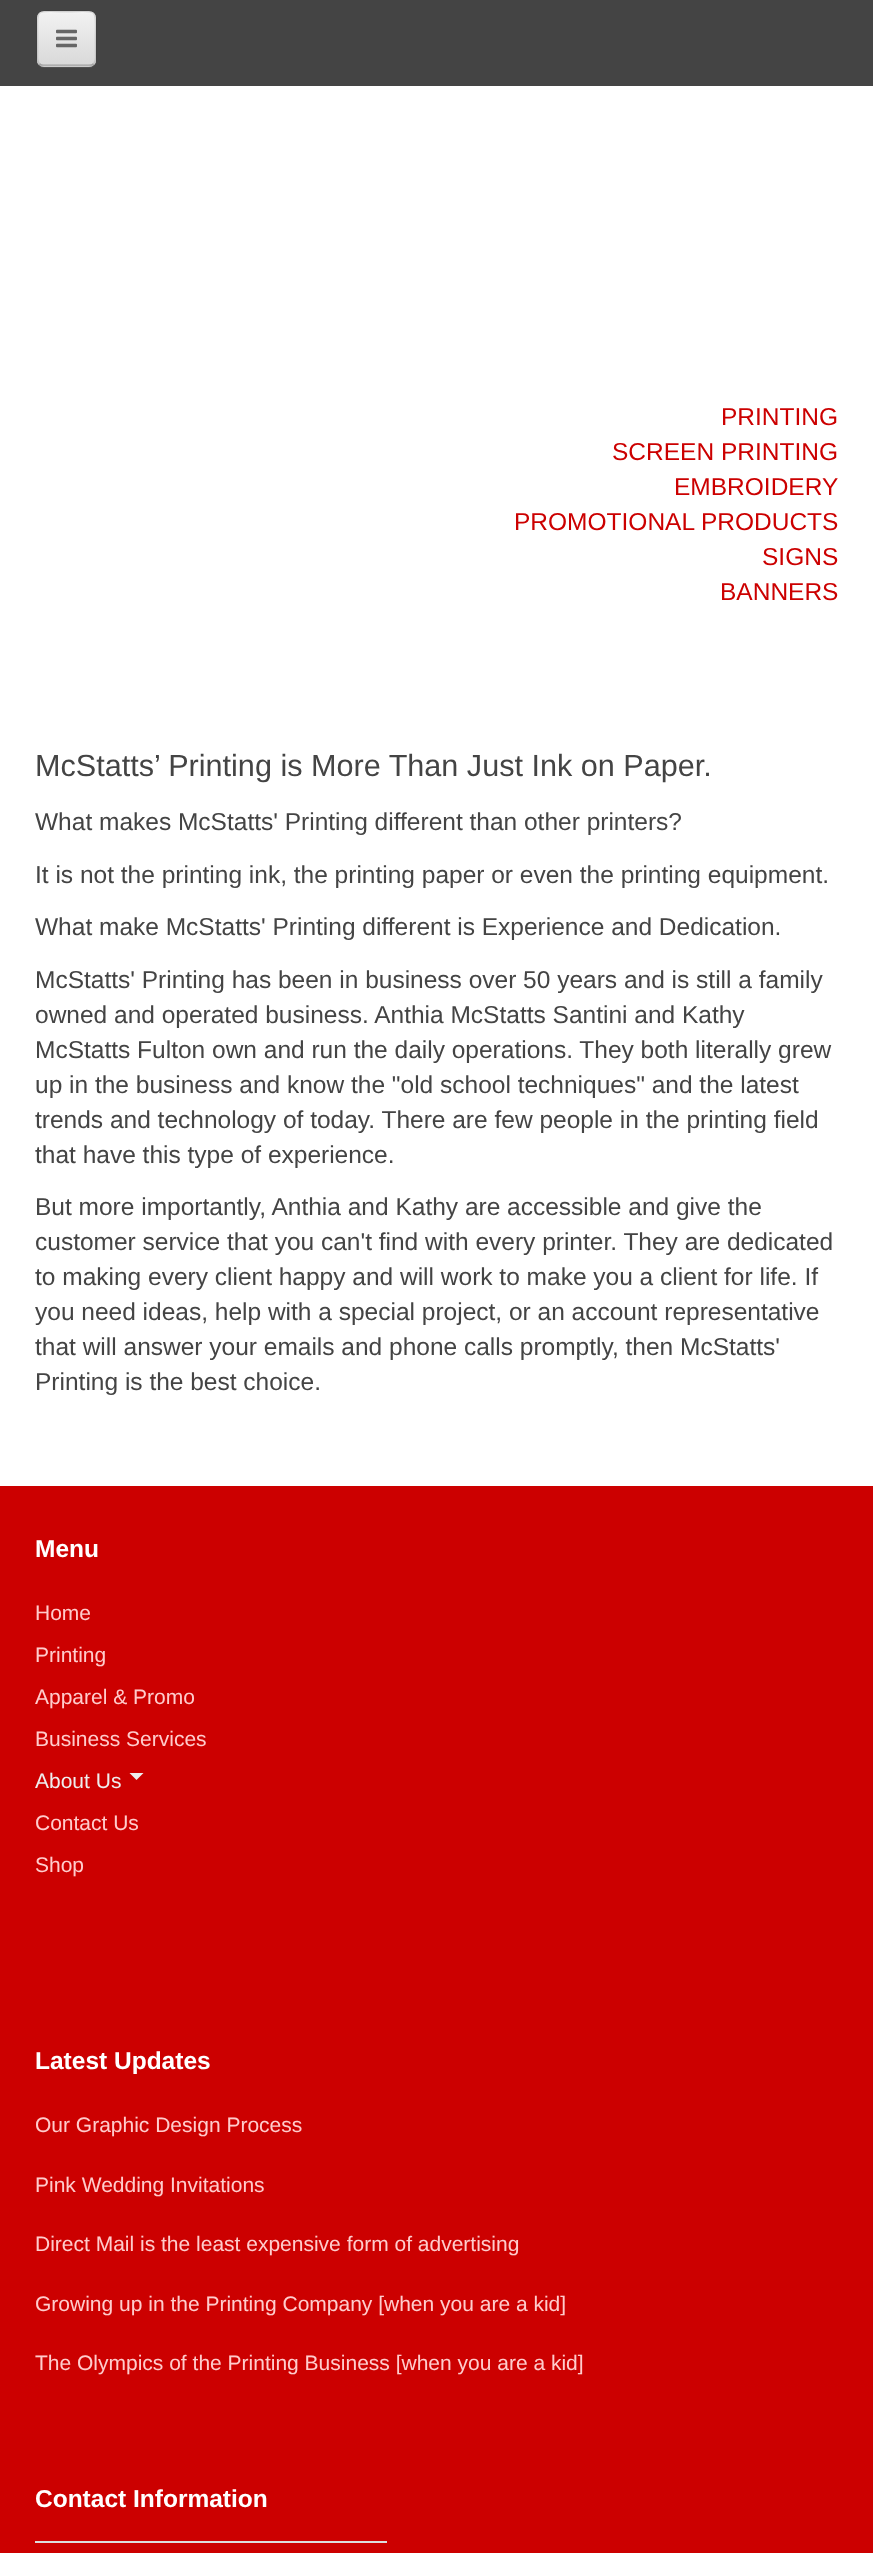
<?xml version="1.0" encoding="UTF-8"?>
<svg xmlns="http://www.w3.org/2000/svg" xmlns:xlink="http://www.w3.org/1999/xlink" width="873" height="2553">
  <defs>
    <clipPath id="clip1"><rect x="37" y="11" width="59" height="56" rx="7" /></clipPath>
    <linearGradient id="g1" gradientUnits="userSpaceOnUse" x1="67" y1="12" x2="67" y2="65"><stop offset="0" stop-color="#f2f2f2" /><stop offset="1" stop-color="#d9d9d9" /></linearGradient>
  </defs>
  <rect width="100%" height="100%" fill="#ffffff" />
  <rect width="873" height="86" fill="#444444" />
  <path d="M 37 61 c 0 4 3 7 7 7 h 45 c 4 0 7 -3 7 -7 c -1 3 -4 5 -7 5 h -45 c -3 0 -6 -2 -7 -5 z" fill="#525252" />
  <rect x="37" y="11" width="59" height="56" rx="7" fill="#e8e8e8" />
  <g clip-path="url(#clip1)">
    <rect x="37" y="12" width="59" height="53" fill="url(#g1)" />
  </g>
  <path d="M 44 14 h 45 c 3 0 5 2 5 5 v 42 l -1 3 c 1 -1 2 -3 2 -4 v -43 c 0 -3 -2 -5 -5 -5 h -46 c -2 0 -5 2 -5 4 c 1 -1 3 -2 5 -2 z" fill="#ffffff" fill-opacity="0.1" />
  <path d="M 93.5 64 c -1 1 -2.5 1.5 -4.5 1.5 h -45 c -2 0 -3.5 -0.5 -4.5 -1.5" fill="none" stroke="#000000" stroke-opacity="0.25" stroke-width="1.8" />
  <path d="M 39.5 64 c -3 -3 -2 -8 -2 -11.5 v -14 c 0 -32.5 -4 -27 29 -27 c 33 0 29 -5.5 29 27 v 14 c 0 3.5 1 8.5 -2 11.5" fill="none" stroke="#000000" stroke-opacity="0.1" stroke-width="1.8" />
  <image x="56" y="29" width="21" height="19" xlink:href="image1.png" />
  <rect y="1486" width="873" height="1067" fill="#cc0000" />
  <path d="M 129.5 1773 h 14 l -7 7 z" fill="#eeeeee" />
  <rect x="35" y="2541" width="352" height="2" fill="#dddddd" />
  <text x="721" y="425" style="font-family: Liberation Sans; font-size: 24.5px; fill: #cc0000">PRINTING</text>
  <text x="612" y="460" style="font-family: Liberation Sans; font-size: 24.5px; fill: #cc0000">SCREEN PRINTING</text>
  <text x="674" y="495" style="font-family: Liberation Sans; font-size: 24.5px; fill: #cc0000">EMBROIDERY</text>
  <text x="514" y="530" style="font-family: Liberation Sans; font-size: 24.5px; fill: #cc0000">PROMOTIONAL PRODUCTS</text>
  <text x="762" y="565" style="font-family: Liberation Sans; font-size: 24.5px; fill: #cc0000">SIGNS</text>
  <text x="720" y="600" style="font-family: Liberation Sans; font-size: 24.5px; fill: #cc0000">BANNERS</text>
  <text x="35" y="776" style="font-family: Liberation Sans; font-size: 30.6px; fill: #444444">McStatts’ Printing is More Than Just Ink on Paper.</text>
  <text x="35" y="830" style="font-family: Liberation Sans; font-size: 24.5px; fill: #444444">What makes McStatts' Printing different than other printers?</text>
  <text x="35" y="883" style="font-family: Liberation Sans; font-size: 24.5px; fill: #444444">It is not the printing ink, the printing paper or even the printing equipment.</text>
  <text x="35" y="935" style="font-family: Liberation Sans; font-size: 24.5px; fill: #444444">What make McStatts' Printing different is Experience and Dedication.</text>
  <text x="35" y="988" style="font-family: Liberation Sans; font-size: 24.5px; fill: #444444">McStatts' Printing has been in business over 50 years and is still a family</text>
  <text x="35" y="1023" style="font-family: Liberation Sans; font-size: 24.5px; fill: #444444">owned and operated business. Anthia McStatts Santini and Kathy</text>
  <text x="35" y="1058" style="font-family: Liberation Sans; font-size: 24.5px; fill: #444444">McStatts Fulton own and run the daily operations. They both literally grew</text>
  <text x="35" y="1093" style="font-family: Liberation Sans; font-size: 24.5px; fill: #444444">up in the business and know the "old school techniques" and the latest</text>
  <text x="35" y="1128" style="font-family: Liberation Sans; font-size: 24.5px; fill: #444444">trends and technology of today. There are few people in the printing field</text>
  <text x="35" y="1163" style="font-family: Liberation Sans; font-size: 24.5px; fill: #444444">that have this type of experience.</text>
  <text x="35" y="1215" style="font-family: Liberation Sans; font-size: 24.5px; fill: #444444">But more importantly, Anthia and Kathy are accessible and give the</text>
  <text x="35" y="1250" style="font-family: Liberation Sans; font-size: 24.5px; fill: #444444">customer service that you can't find with every printer. They are dedicated</text>
  <text x="35" y="1285" style="font-family: Liberation Sans; font-size: 24.5px; fill: #444444">to making every client happy and will work to make you a client for life. If</text>
  <text x="35" y="1320" style="font-family: Liberation Sans; font-size: 24.5px; fill: #444444">you need ideas, help with a special project, or an account representative</text>
  <text x="35" y="1355" style="font-family: Liberation Sans; font-size: 24.5px; fill: #444444">that will answer your emails and phone calls promptly, then McStatts'</text>
  <text x="35" y="1390" style="font-family: Liberation Sans; font-size: 24.5px; fill: #444444">Printing is the best choice.</text>
  <text x="35" y="1557" style="font-family: Liberation Sans; font-size: 24.5px; font-weight: bold; fill: #ffffff">Menu</text>
  <text x="35" y="1620" style="font-family: Liberation Sans; font-size: 21px; fill: #ffcccc">Home</text>
  <text x="35" y="1662" style="font-family: Liberation Sans; font-size: 21px; fill: #ffcccc">Printing</text>
  <text x="35" y="1704" style="font-family: Liberation Sans; font-size: 21px; fill: #ffcccc">Apparel &amp; Promo</text>
  <text x="35" y="1746" style="font-family: Liberation Sans; font-size: 21px; fill: #ffcccc">Business Services</text>
  <text x="35" y="1788" style="font-family: Liberation Sans; font-size: 21px; fill: #eeeeee">About Us</text>
  <text x="35" y="1830" style="font-family: Liberation Sans; font-size: 21px; fill: #ffcccc">Contact Us</text>
  <text x="35" y="1872" style="font-family: Liberation Sans; font-size: 21px; fill: #ffcccc">Shop</text>
  <text x="35" y="2069" style="font-family: Liberation Sans; font-size: 24.5px; font-weight: bold; fill: #ffffff">Latest Updates</text>
  <text x="35" y="2132" style="font-family: Liberation Sans; font-size: 21px; fill: #ffcccc">Our Graphic Design Process</text>
  <text x="35" y="2192" style="font-family: Liberation Sans; font-size: 21px; fill: #ffcccc">Pink Wedding Invitations</text>
  <text x="35" y="2251" style="font-family: Liberation Sans; font-size: 21px; fill: #ffcccc">Direct Mail is the least expensive form of advertising</text>
  <text x="35" y="2311" style="font-family: Liberation Sans; font-size: 21px; fill: #ffcccc">Growing up in the Printing Company [when you are a kid]</text>
  <text x="35" y="2370" style="font-family: Liberation Sans; font-size: 21px; fill: #ffcccc">The Olympics of the Printing Business [when you are a kid]</text>
  <text x="35" y="2507" style="font-family: Liberation Sans; font-size: 24.5px; font-weight: bold; fill: #ffffff">Contact Information</text>
</svg>
